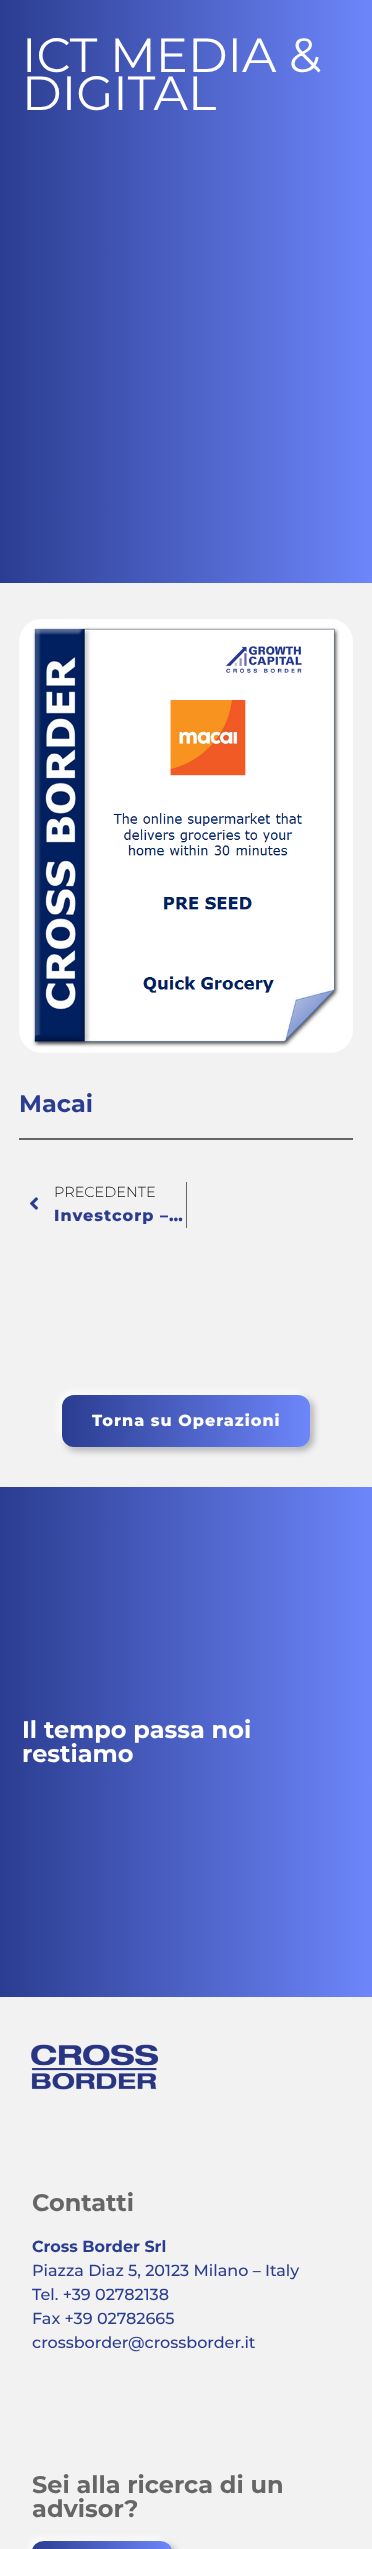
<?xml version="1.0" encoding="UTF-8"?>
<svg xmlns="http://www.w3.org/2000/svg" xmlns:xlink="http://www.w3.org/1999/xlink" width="372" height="2549">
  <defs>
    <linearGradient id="g1" gradientUnits="userSpaceOnUse" x1="0" y1="73" x2="372" y2="73"><stop offset="0" stop-color="#2b3d91" /><stop offset="1" stop-color="#6d86fa" /></linearGradient>
    <linearGradient id="g2" gradientUnits="userSpaceOnUse" x1="62" y1="1421" x2="310" y2="1421"><stop offset="0" stop-color="#2b3d91" /><stop offset="1" stop-color="#6d86fa" /></linearGradient>
    <linearGradient id="g3" gradientUnits="userSpaceOnUse" x1="0" y1="1742" x2="372" y2="1742"><stop offset="0" stop-color="#2b3d91" /><stop offset="1" stop-color="#6d86fa" /></linearGradient>
    <linearGradient id="g4" gradientUnits="userSpaceOnUse" x1="32" y1="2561" x2="172" y2="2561"><stop offset="0" stop-color="#2b3d91" /><stop offset="1" stop-color="#6d86fa" /></linearGradient>
  </defs>
  <rect width="100%" height="100%" fill="#f2f2f2" />
  <rect width="372" height="583" fill="url(#g1)" />
  <image x="19" y="619" width="334" height="434" xlink:href="image1.png" />
  <rect x="19" y="1138" width="334" height="2" fill="#666666" />
  <image x="30" y="1197" width="8" height="13" xlink:href="image2.png" />
  <rect x="186" y="1182" width="1" height="46" fill="#666666" />
  <rect x="65" y="1398" width="248" height="52" rx="12" fill="#aeaec0" fill-opacity="0.25" filter="blur(3.5px)" />
  <rect x="65" y="1398" width="248" height="52" rx="12" fill="#6e6e6e" fill-opacity="0.5" filter="blur(3.5px)" />
  <rect x="59" y="1392" width="248" height="52" rx="12" fill="#ffffff" filter="blur(3.5px)" />
  <rect x="62" y="1395" width="248" height="52" rx="12" fill="url(#g2)" />
  <rect y="1487" width="372" height="510" fill="url(#g3)" />
  <image x="31" y="2044" width="128" height="46" xlink:href="image3.png" />
  <rect x="35" y="2544" width="140" height="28" rx="12" fill="#aeaec0" fill-opacity="0.25" filter="blur(3.5px)" />
  <rect x="35" y="2544" width="140" height="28" rx="12" fill="#6e6e6e" fill-opacity="0.5" filter="blur(3.5px)" />
  <rect x="29" y="2538" width="140" height="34" rx="12" fill="#ffffff" filter="blur(3.5px)" />
  <rect x="32" y="2541" width="140" height="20" rx="12" fill="url(#g4)" />
  <text x="22" y="72" style="font-family: Montserrat; font-size: 48px; fill: #ffffff">ICT MEDIA &amp;</text>
  <text x="22" y="110" style="font-family: Montserrat; font-size: 48px; fill: #ffffff">DIGITAL</text>
  <text x="19" y="1112" style="font-family: Montserrat; font-size: 24px; font-weight: bold; fill: #2b3d91">Macai</text>
  <text x="54" y="1197" style="font-family: Montserrat; font-size: 14.5px; font-weight: 300; fill: #141414">PRECEDENTE</text>
  <text x="54" y="1221" style="font-family: Montserrat; font-size: 16px; font-weight: 800; letter-spacing: 1px; fill: #2b3d91">Investcorp –…</text>
  <text x="92" y="1426" style="font-family: Montserrat; font-size: 16px; font-weight: 800; letter-spacing: 1px; fill: #ffffff">Torna su Operazioni</text>
  <text x="22" y="1738" style="font-family: Montserrat; font-size: 24px; font-weight: bold; fill: #ffffff">Il tempo passa noi</text>
  <text x="22" y="1762" style="font-family: Montserrat; font-size: 24px; font-weight: bold; fill: #ffffff">restiamo</text>
  <text x="32" y="2211" style="font-family: Montserrat; font-size: 24px; font-weight: bold; fill: #666666">Contatti</text>
  <text x="32" y="2252" style="font-family: Montserrat; font-size: 16px; font-weight: bold; fill: #2b3d91">Cross Border Srl</text>
  <text x="32" y="2276" style="font-family: Montserrat; font-size: 16px; font-weight: 500; fill: #2b3d91">Piazza Diaz 5, 20123 Milano – Italy</text>
  <text x="32" y="2300" style="font-family: Montserrat; font-size: 16px; font-weight: 500; fill: #2b3d91">Tel. +39 02782138</text>
  <text x="32" y="2324" style="font-family: Montserrat; font-size: 16px; font-weight: 500; fill: #2b3d91">Fax +39 02782665</text>
  <text x="32" y="2348" style="font-family: Montserrat; font-size: 16px; font-weight: 500; fill: #2b3d91">crossborder@crossborder.it</text>
  <text x="32" y="2493" style="font-family: Montserrat; font-size: 24px; font-weight: bold; fill: #666666">Sei alla ricerca di un</text>
  <text x="32" y="2517" style="font-family: Montserrat; font-size: 24px; font-weight: bold; fill: #666666">advisor?</text>
</svg>
